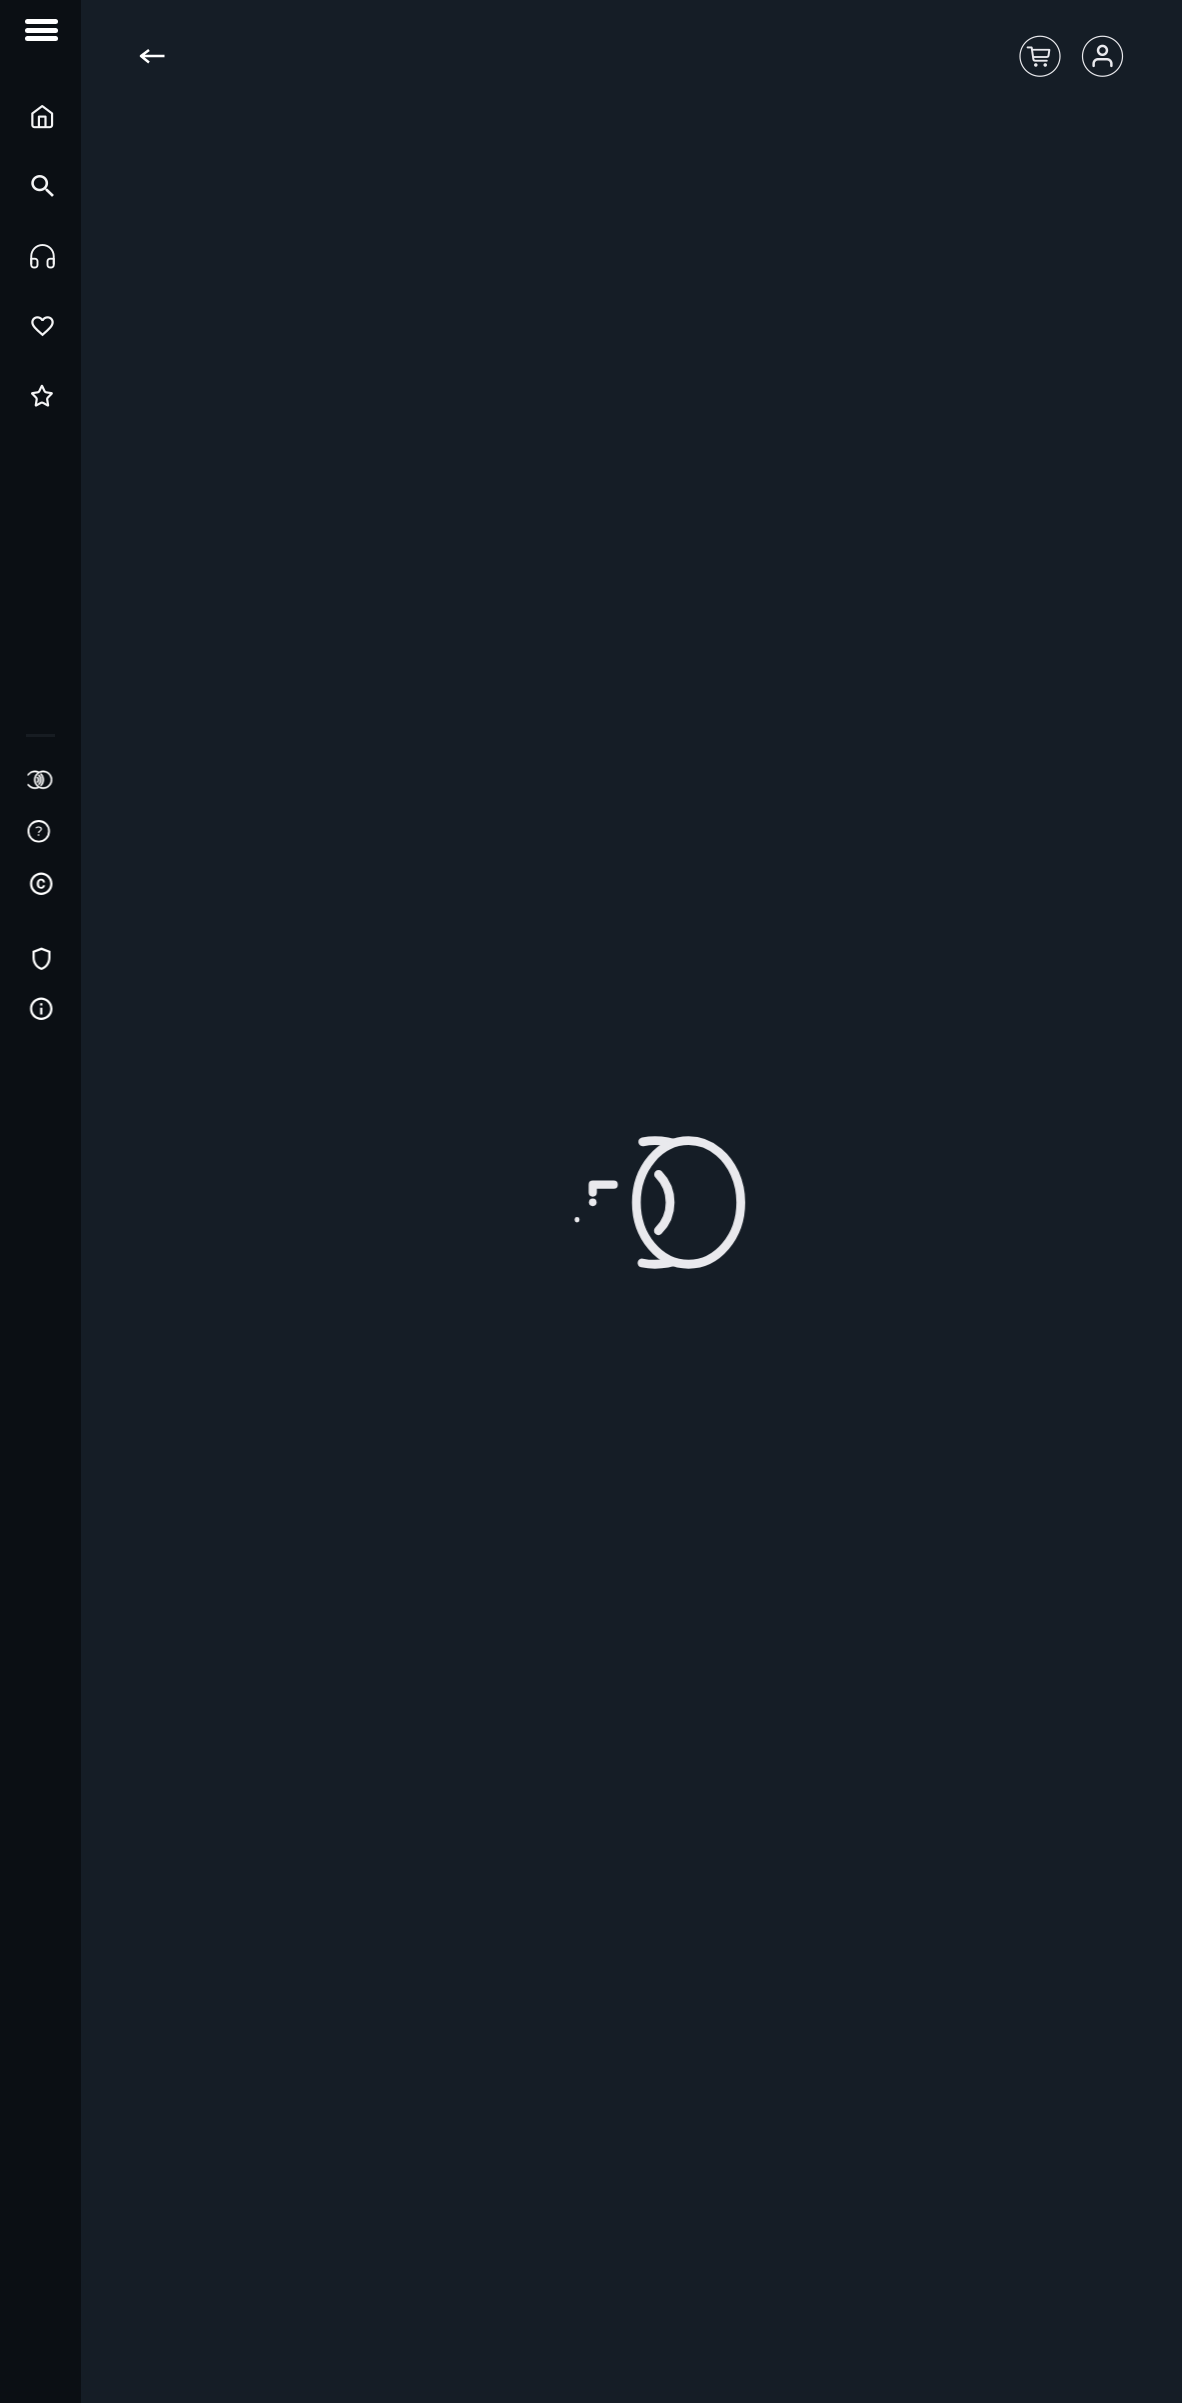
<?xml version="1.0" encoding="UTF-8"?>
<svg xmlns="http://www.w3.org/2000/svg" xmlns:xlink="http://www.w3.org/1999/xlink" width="1182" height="2403">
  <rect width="100%" height="100%" fill="#151d26" />
  <rect width="81" height="2403" fill="#0b0f14" />
  <rect x="25" y="19" width="33" height="5" rx="2.5" fill="#ffffff" />
  <rect x="25" y="28" width="33" height="5" rx="2.5" fill="#ffffff" />
  <rect x="25" y="36" width="33" height="5" rx="2.5" fill="#ffffff" />
  <image x="31" y="105" width="23" height="24" xlink:href="image1.png" />
  <image x="31" y="175" width="23" height="22" xlink:href="image2.png" />
  <image x="30" y="244" width="25" height="25" xlink:href="image3.png" />
  <image x="31" y="316" width="23" height="21" xlink:href="image4.png" />
  <image x="31" y="384" width="22" height="23" xlink:href="image5.png" />
  <rect x="26" y="734" width="29" height="3" fill="#171c22" />
  <image x="27" y="770" width="26" height="20" xlink:href="image6.png" />
  <image x="27" y="820" width="24" height="23" xlink:href="image7.png" />
  <image x="29" y="872" width="24" height="23" xlink:href="image8.png" />
  <image x="32" y="947" width="19" height="23" xlink:href="image9.png" />
  <image x="29" y="997" width="24" height="23" xlink:href="image10.png" />
  <path d="M 149 50 l -8 6 h 23.5 m -15.5 6.5 l -8 -6.5 h 23.5" fill="none" stroke="#ffffff" stroke-width="2.5" stroke-linejoin="round" />
  <image x="1019" y="35" width="42" height="42" xlink:href="image11.png" />
  <image x="1081" y="35" width="43" height="42" xlink:href="image12.png" />
  <image x="574" y="1136" width="172" height="133" xlink:href="image13.png" />
</svg>
